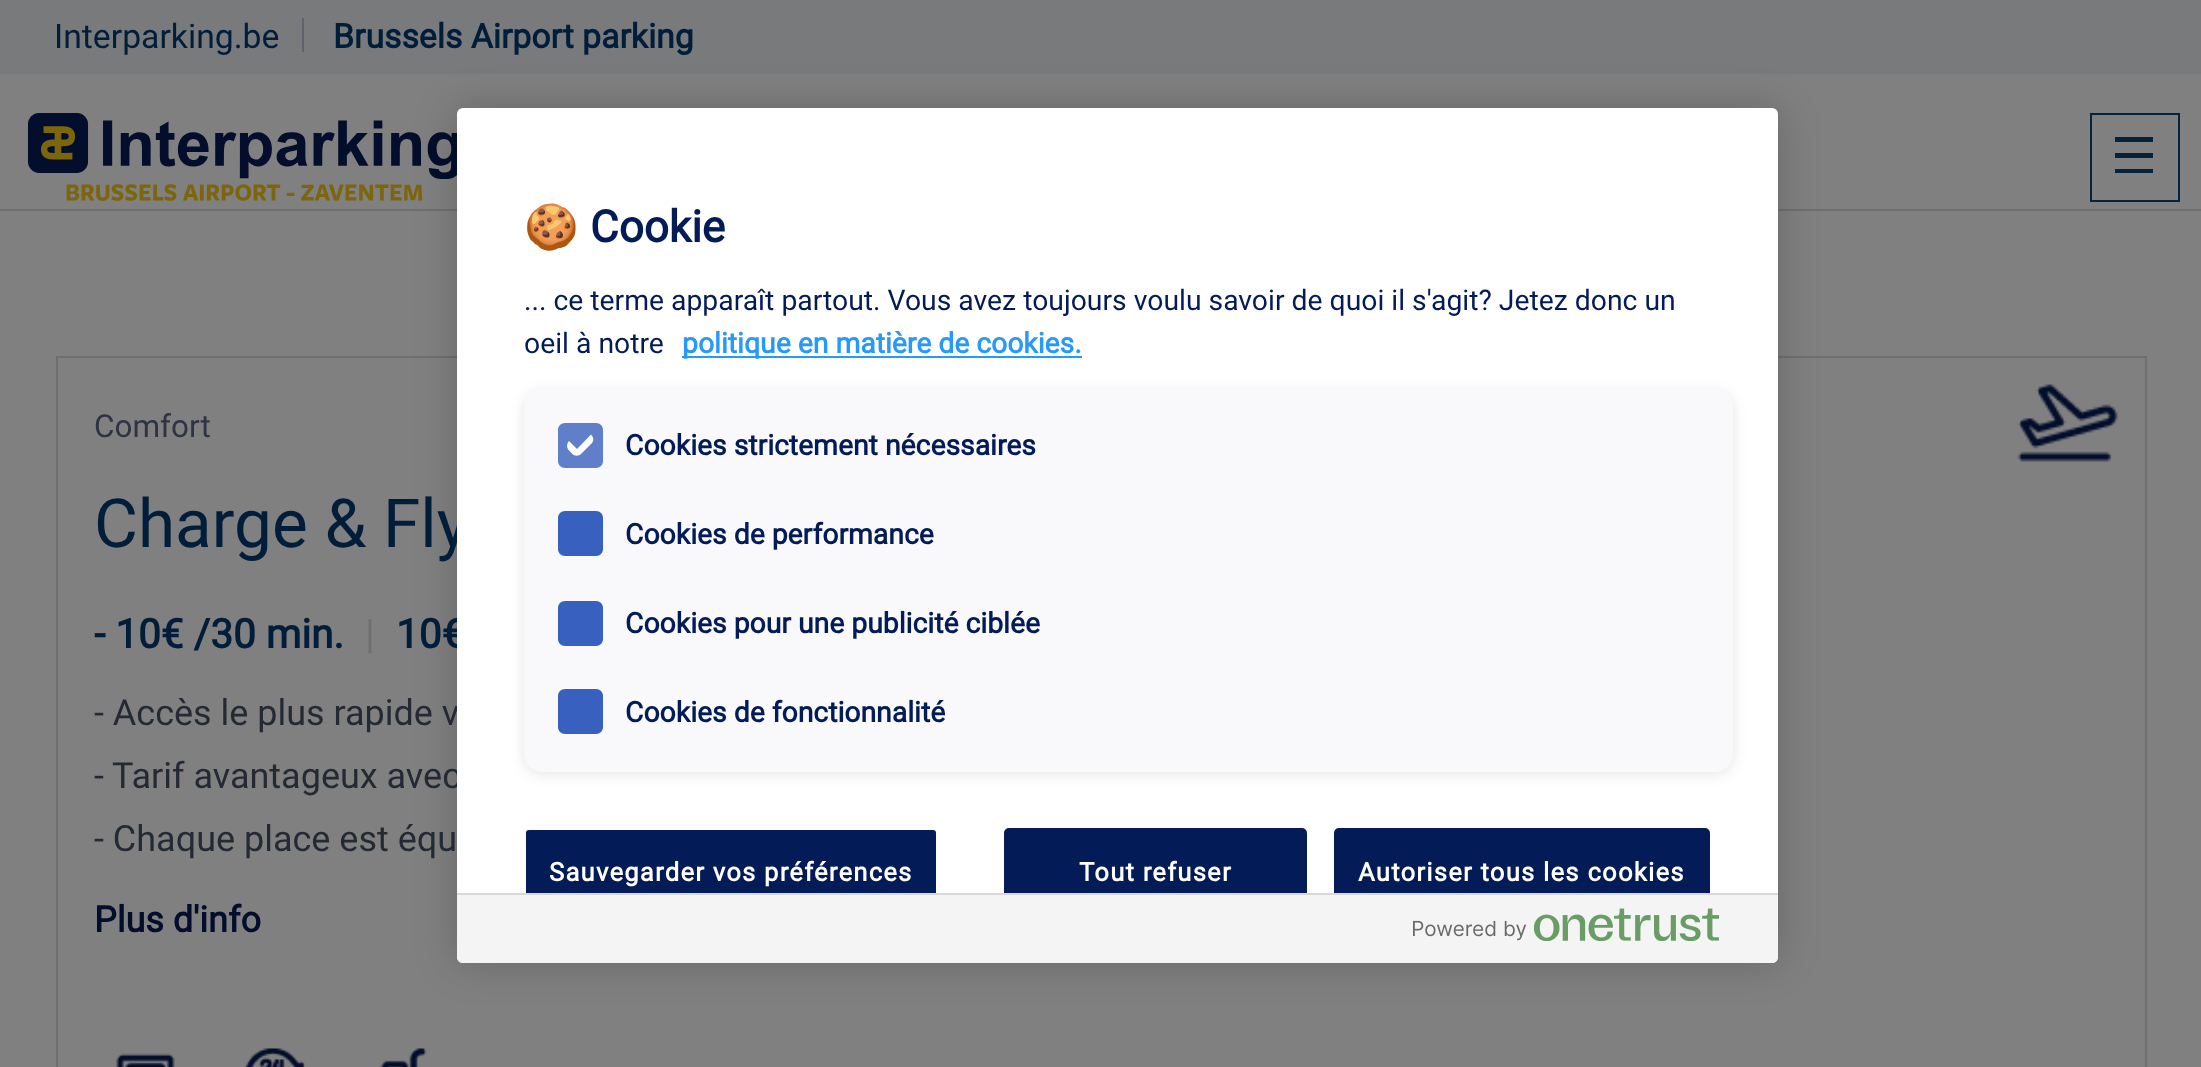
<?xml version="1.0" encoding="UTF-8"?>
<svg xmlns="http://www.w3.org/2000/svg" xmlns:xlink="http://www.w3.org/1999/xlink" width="2201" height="1067">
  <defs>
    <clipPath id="clip1"><rect x="2090" y="113" width="90" height="90" /></clipPath>
  </defs>
  <rect width="100%" height="100%" fill="#808080" />
  <rect y="209" width="2201" height="2" fill="#6d7071" />
  <rect width="2201" height="74" fill="#797a7c" />
  <rect x="302" y="18" width="2" height="34" fill="#5f626a" />
  <image x="27" y="113" width="430" height="88" xlink:href="image1.png" />
  <rect x="2115" y="137" width="38" height="5" fill="#04243b" />
  <rect x="2115" y="153" width="38" height="5" fill="#04243b" />
  <rect x="2115" y="169" width="38" height="4" fill="#04243b" />
  <g clip-path="url(#clip1)">
    <path d="M 2090 112 v 90 h 90 v -90 z m 88 88 h -86 v -85 h 86 z" fill="#04243b" />
  </g>
  <rect x="57" y="357" width="2089" height="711" fill="none" stroke="#6d7071" stroke-width="2" />
  <image x="2017" y="384" width="101" height="78" xlink:href="image2.png" />
  <image x="116" y="1053" width="59" height="14" xlink:href="image3.png" />
  <image x="245" y="1048" width="60" height="19" xlink:href="image4.png" />
  <image x="380" y="1048" width="47" height="19" xlink:href="image5.png" />
  <rect x="457" y="108" width="1321" height="855" rx="6" fill="#000000" fill-opacity="0.2" filter="blur(20px)" />
  <text x="54" y="48" style="font-family: Roboto; font-size: 33.75px; fill: #001d3a">Interparking.be</text>
  <text x="333" y="48" style="font-family: Roboto; font-size: 33.75px; font-weight: bold; fill: #001d3a">Brussels Airport parking</text>
  <text x="94" y="437" style="font-family: Roboto; font-size: 31.5px; fill: #2f3443">Comfort</text>
  <text x="94" y="547" style="font-family: Roboto; font-size: 67.5px; fill: #001d3a">Charge &amp; Fly</text>
  <text x="94" y="648" style="font-family: Roboto; font-size: 40.5px; font-weight: bold; fill: #001d3a">- 10€ /30 min.</text>
  <text x="365" y="648" style="font-family: Roboto; font-size: 40.5px; fill: #6d7071">|</text>
  <text x="396" y="648" style="font-family: Roboto; font-size: 40.5px; font-weight: bold; fill: #001d3a">10€</text>
  <text x="94" y="725" style="font-family: Roboto; font-size: 36px; fill: #242a34">- Accès le plus rapide v</text>
  <text x="94" y="788" style="font-family: Roboto; font-size: 36px; fill: #242a34">-</text>
  <text x="112" y="788" style="font-family: Roboto; font-size: 36px; fill: #242a34">Tarif avantageux avec</text>
  <text x="94" y="851" style="font-family: Roboto; font-size: 36px; fill: #242a34">- Chaque place est équ</text>
  <text x="94" y="932" style="font-family: Roboto; font-size: 36px; font-weight: bold; fill: #020e2b">Plus d'info</text>
  <rect x="457" y="108" width="1321" height="855" rx="6" fill="#ffffff" />
  <text x="524" y="242" style="font-family: Noto Color Emoji; font-size: 44px; font-weight: bold; fill: #031b56">🍪</text>
  <text x="590" y="242" style="font-family: Roboto; font-size: 44px; font-weight: bold; fill: #031b56">Cookie</text>
  <text x="524" y="310" style="font-family: Roboto; font-size: 28.35px; fill: #031b56">... ce terme apparaît partout. Vous avez toujours voulu savoir de quoi il s'agit? Jetez donc un</text>
  <text x="524" y="353" style="font-family: Roboto; font-size: 28.35px; fill: #031b56">oeil à notre</text>
  <rect x="682" y="356" width="400" height="2" fill="#2699fb" />
  <text x="682" y="353" style="font-family: Roboto; font-size: 28.35px; font-weight: bold; fill: #2699fb">politique en matière de cookies.</text>
  <rect x="524" y="392" width="1209" height="382" rx="18" fill="#000000" fill-opacity="0.1" filter="blur(7px)" />
  <rect x="524" y="389" width="1209" height="383" rx="18" fill="#f9f9fc" />
  <path d="M 565 423 h 31 c 4 0 7 3 7 7 v 31 c 0 4 -3 7 -7 7 h -31 c -4 0 -7 -3 -7 -7 v -31 c 0 -4 3 -7 7 -7 z" fill="#5f7fca" />
  <path d="M 569 441 l 9.5 -9.5 c 2.5 -2.5 7 -2.5 9.5 0 l 3 3 c 3 3 3 7 0 9.5 l -9.5 9.5 c -2.5 3 -7 3 -9.5 0 l -3 -3 c -2.5 -2.5 -2.5 -7 0 -9.5 z m 0 0 l 9.5 -9.5 c 2.5 -2.5 7 -2.5 9.5 0 l 3 3 l -14 14.5 z" fill="#fefefe" fill-rule="evenodd" />
  <text x="625" y="455" style="font-family: Roboto; font-size: 28.35px; font-weight: bold; fill: #031b56">Cookies strictement nécessaires</text>
  <path d="M 565 511 h 31 c 4 0 7 3 7 7 v 31 c 0 4 -3 7 -7 7 h -31 c -4 0 -7 -3 -7 -7 v -31 c 0 -4 3 -7 7 -7 z" fill="#3860be" />
  <text x="625" y="544" style="font-family: Roboto; font-size: 28.35px; font-weight: bold; fill: #031b56">Cookies de performance</text>
  <path d="M 565 601 h 31 c 4 0 7 3 7 7 v 31 c 0 4 -3 7 -7 7 h -31 c -4 0 -7 -3 -7 -7 v -31 c 0 -4 3 -7 7 -7 z" fill="#3860be" />
  <text x="625" y="633" style="font-family: Roboto; font-size: 28.35px; font-weight: bold; fill: #031b56">Cookies pour une publicité ciblée</text>
  <path d="M 565 689 h 31 c 4 0 7 3 7 7 v 31 c 0 4 -3 7 -7 7 h -31 c -4 0 -7 -3 -7 -7 v -31 c 0 -4 3 -7 7 -7 z" fill="#3860be" />
  <text x="625" y="722" style="font-family: Roboto; font-size: 28.35px; font-weight: bold; fill: #031b56">Cookies de fonctionnalité</text>
  <rect x="525" y="829" width="412" height="93" rx="4" fill="#031b56" stroke="#ffffff" stroke-width="2" />
  <text x="549" y="881" style="font-family: Roboto; font-size: 25.6px; font-weight: bold; letter-spacing: 1.25px; fill: #ffffff">Sauvegarder vos préférences</text>
  <rect x="1005" y="829" width="301" height="93" rx="4" fill="#031b56" stroke="#031b56" stroke-width="2" />
  <text x="1079" y="881" style="font-family: Roboto; font-size: 25.6px; font-weight: bold; letter-spacing: 1.25px; fill: #ffffff">Tout refuser</text>
  <rect x="1335" y="829" width="374" height="93" rx="4" fill="#031b56" stroke="#031b56" stroke-width="2" />
  <text x="1358" y="881" style="font-family: Roboto; font-size: 25.6px; font-weight: bold; letter-spacing: 1.25px; fill: #ffffff">Autoriser tous les cookies</text>
  <path d="M 457 893 h 1321 v 64 c 0 3.5 -2.5 6 -6 6 h -1309 c -3.5 0 -6 -2.5 -6 -6 z" fill="#f4f4f4" />
  <rect x="457" y="893" width="1321" height="2" fill="#d8d8d8" />
  <image x="1413" y="908" width="306" height="34" xlink:href="image6.png" />
</svg>
